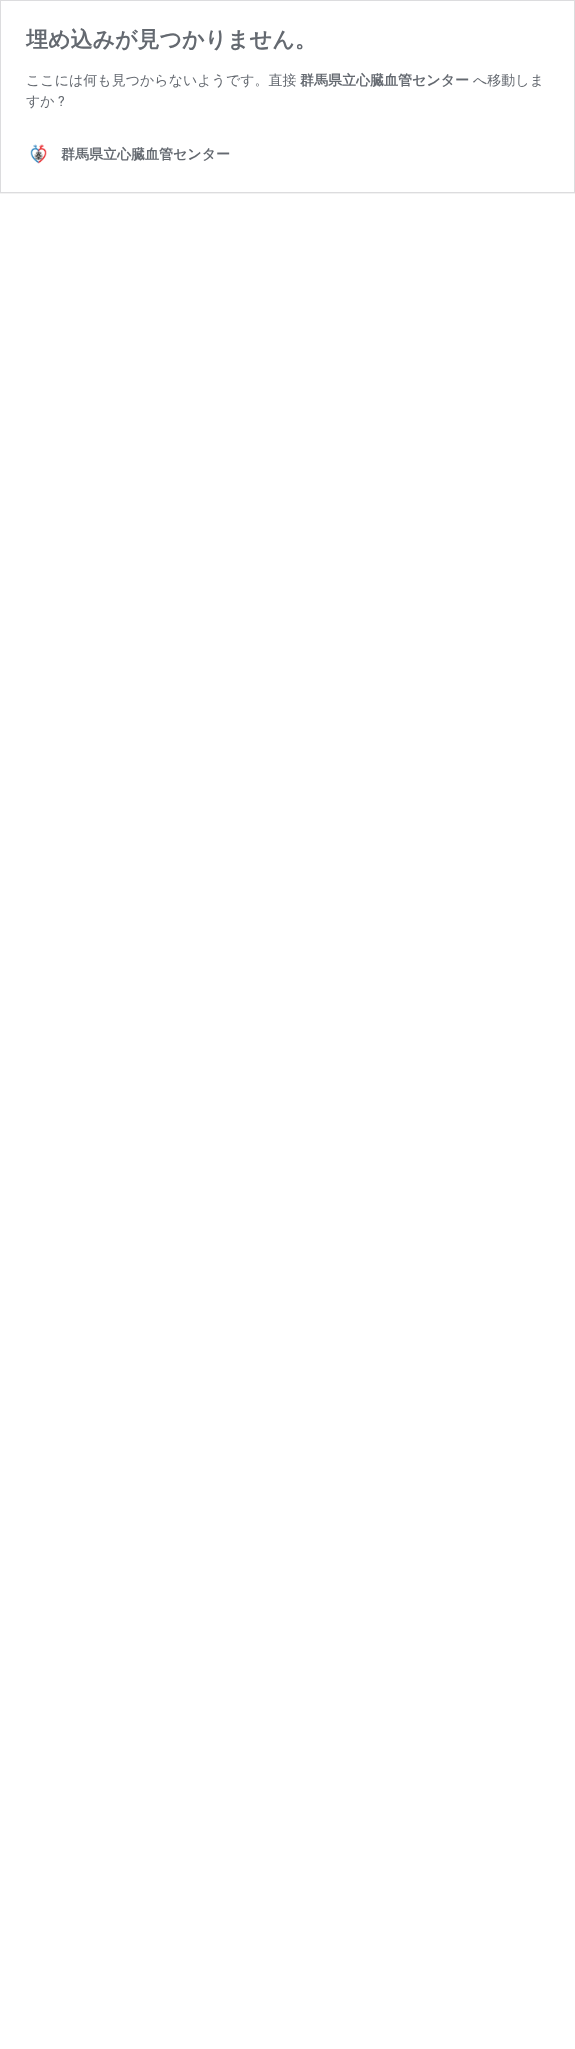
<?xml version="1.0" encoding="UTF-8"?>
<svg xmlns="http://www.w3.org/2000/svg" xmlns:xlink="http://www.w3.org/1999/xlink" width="575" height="2049">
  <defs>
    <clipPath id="clip1"><rect x="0" y="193" width="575" height="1" /></clipPath>
  </defs>
  <rect width="100%" height="100%" fill="#ffffff" />
  <g clip-path="url(#clip1)">
    <rect y="1" width="575" height="193" fill="#000000" fill-opacity="0.05" filter="blur(0.5px)" />
  </g>
  <rect x="0.5" y="0.5" width="574" height="192" fill="none" stroke="#dcdcde" />
  <image x="30" y="144" width="17" height="20" xlink:href="image1.png" />
  <text x="26" y="47" style="font-family: WenQuanYi Zen Hei; font-size: 22px; font-weight: bold; fill: #646970">埋め込みが見つかりません。</text>
  <text x="26" y="85" style="font-family: WenQuanYi Zen Hei; font-size: 14px; font-weight: 500; fill: #646970">ここには何も見つからないようです。直接</text>
  <text x="300" y="85" style="font-family: WenQuanYi Zen Hei; font-size: 14px; font-weight: bold; fill: #646970">群馬県立心臓血管センター</text>
  <text x="473" y="85" style="font-family: WenQuanYi Zen Hei; font-size: 14px; font-weight: 500; fill: #646970">へ移動しま</text>
  <text x="26" y="106" style="font-family: WenQuanYi Zen Hei; font-size: 14px; font-weight: 500; fill: #646970">すか</text>
  <text x="58" y="106" style="font-family: Roboto; font-size: 14px; fill: #646970">?</text>
  <text x="61" y="159" style="font-family: WenQuanYi Zen Hei; font-size: 14px; font-weight: bold; fill: #646970">群馬県立心臓血管センター</text>
</svg>
